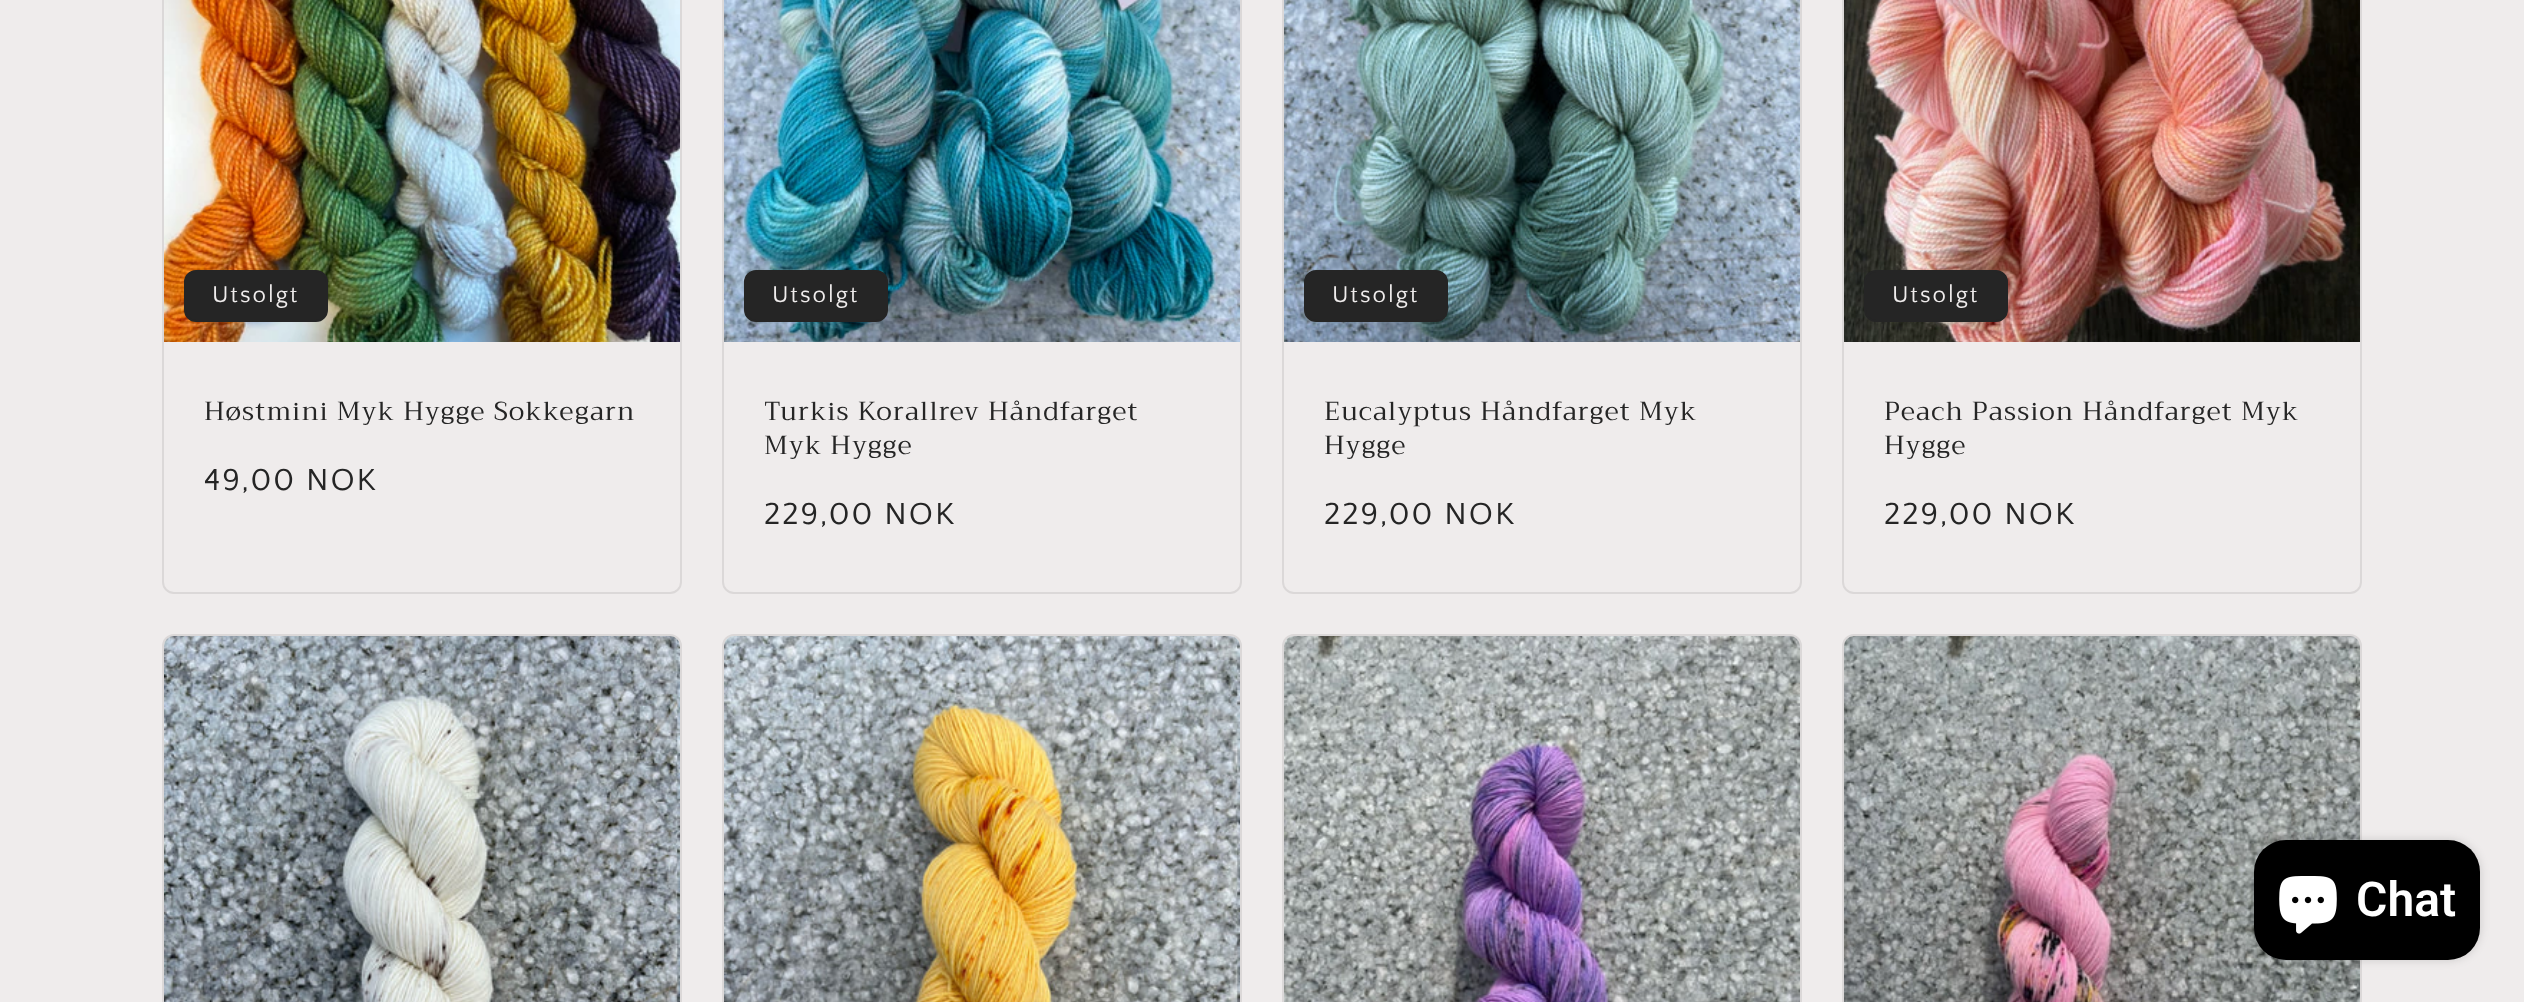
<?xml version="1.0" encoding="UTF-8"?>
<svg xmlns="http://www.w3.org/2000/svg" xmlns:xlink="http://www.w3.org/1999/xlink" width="2524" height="1002">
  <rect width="100%" height="100%" fill="#efecec" />
  <rect x="163" y="-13" width="518" height="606" rx="11" fill="none" stroke="#dbd8d8" stroke-width="2" />
  <image x="164" y="0" width="516" height="342" xlink:href="image1.png" />
  <rect x="185" y="271" width="142" height="50" rx="11" fill="#252525" stroke="#252525" stroke-width="2" />
  <rect x="723" y="-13" width="518" height="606" rx="11" fill="none" stroke="#dbd8d8" stroke-width="2" />
  <image x="724" y="0" width="516" height="342" xlink:href="image2.png" />
  <rect x="745" y="271" width="142" height="50" rx="11" fill="#252525" stroke="#252525" stroke-width="2" />
  <rect x="1283" y="-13" width="518" height="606" rx="11" fill="none" stroke="#dbd8d8" stroke-width="2" />
  <image x="1284" y="0" width="516" height="342" xlink:href="image3.png" />
  <rect x="1305" y="271" width="142" height="50" rx="11" fill="#252525" stroke="#252525" stroke-width="2" />
  <rect x="1843" y="-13" width="518" height="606" rx="11" fill="none" stroke="#dbd8d8" stroke-width="2" />
  <image x="1844" y="0" width="516" height="342" xlink:href="image4.png" />
  <rect x="1865" y="271" width="142" height="50" rx="11" fill="#252525" stroke="#252525" stroke-width="2" />
  <rect x="163" y="635" width="518" height="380" rx="11" fill="none" stroke="#dbd8d8" stroke-width="2" />
  <image x="164" y="636" width="516" height="366" xlink:href="image5.png" />
  <rect x="723" y="635" width="518" height="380" rx="11" fill="none" stroke="#dbd8d8" stroke-width="2" />
  <image x="724" y="636" width="516" height="366" xlink:href="image6.png" />
  <rect x="1283" y="635" width="518" height="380" rx="11" fill="none" stroke="#dbd8d8" stroke-width="2" />
  <image x="1284" y="636" width="516" height="366" xlink:href="image7.png" />
  <rect x="1843" y="635" width="518" height="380" rx="11" fill="none" stroke="#dbd8d8" stroke-width="2" />
  <image x="1844" y="636" width="516" height="366" xlink:href="image8.png" />
  <rect x="2254" y="840" width="226" height="120" rx="32" fill="#000000" fill-opacity="0.15" filter="blur(5px)" />
  <rect x="2254" y="840" width="226" height="120" rx="32" fill="#000000" />
  <image x="2279" y="876" width="58" height="58" xlink:href="image9.png" />
  <text x="212" y="302" style="font-family: Quattrocento Sans; font-size: 24px; letter-spacing: 2px; fill: #efecec">Utsolgt</text>
  <text x="204" y="420" style="font-family: Trirong; font-size: 26px; letter-spacing: 1.2px; fill: #252525">Høstmini Myk Hygge Sokkegarn</text>
  <text x="204" y="490" style="font-family: Quattrocento Sans; font-size: 32px; letter-spacing: 2px; fill: #252525">49,00 NOK</text>
  <text x="772" y="302" style="font-family: Quattrocento Sans; font-size: 24px; letter-spacing: 2px; fill: #efecec">Utsolgt</text>
  <text x="764" y="420" style="font-family: Trirong; font-size: 26px; letter-spacing: 1.2px; fill: #252525">Turkis Korallrev Håndfarget</text>
  <text x="764" y="454" style="font-family: Trirong; font-size: 26px; letter-spacing: 1.2px; fill: #252525">Myk Hygge</text>
  <text x="764" y="524" style="font-family: Quattrocento Sans; font-size: 32px; letter-spacing: 2px; fill: #252525">229,00 NOK</text>
  <text x="1332" y="302" style="font-family: Quattrocento Sans; font-size: 24px; letter-spacing: 2px; fill: #efecec">Utsolgt</text>
  <text x="1324" y="420" style="font-family: Trirong; font-size: 26px; letter-spacing: 1.2px; fill: #252525">Eucalyptus Håndfarget Myk</text>
  <text x="1324" y="454" style="font-family: Trirong; font-size: 26px; letter-spacing: 1.2px; fill: #252525">Hygge</text>
  <text x="1324" y="524" style="font-family: Quattrocento Sans; font-size: 32px; letter-spacing: 2px; fill: #252525">229,00 NOK</text>
  <text x="1892" y="302" style="font-family: Quattrocento Sans; font-size: 24px; letter-spacing: 2px; fill: #efecec">Utsolgt</text>
  <text x="1884" y="420" style="font-family: Trirong; font-size: 26px; letter-spacing: 1.2px; fill: #252525">Peach Passion Håndfarget Myk</text>
  <text x="1884" y="454" style="font-family: Trirong; font-size: 26px; letter-spacing: 1.2px; fill: #252525">Hygge</text>
  <text x="1884" y="524" style="font-family: Quattrocento Sans; font-size: 32px; letter-spacing: 2px; fill: #252525">229,00 NOK</text>
  <text x="2356" y="916" style="font-family: Roboto; font-size: 48px; font-weight: 600; fill: #ffffff">Chat</text>
</svg>
